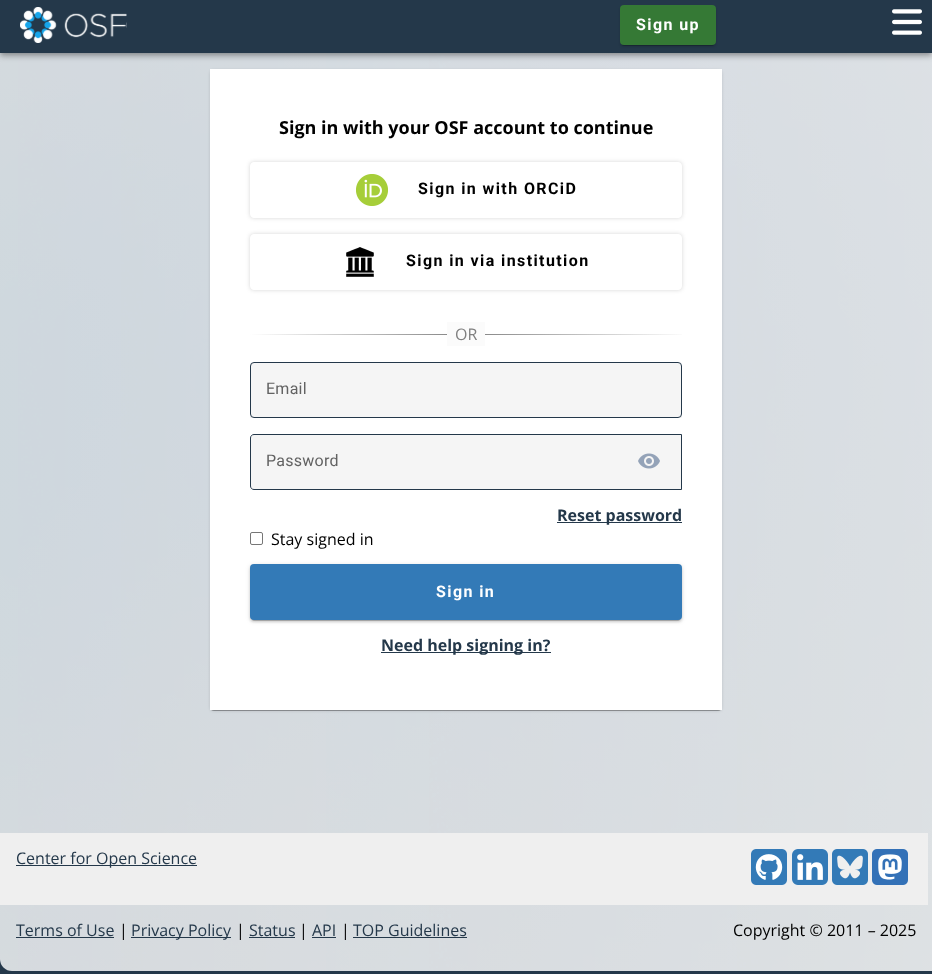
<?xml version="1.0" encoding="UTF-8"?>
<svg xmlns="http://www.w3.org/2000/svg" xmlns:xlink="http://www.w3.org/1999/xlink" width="932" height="974">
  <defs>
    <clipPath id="clip1"><path d="M 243 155 h 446 v 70 h -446 z m 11 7 h 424 c 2 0 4 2 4 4 v 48 c 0 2 -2 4 -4 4 h -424 c -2 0 -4 -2 -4 -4 v -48 c 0 -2 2 -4 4 -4 z" clip-rule="evenodd" /></clipPath>
    <clipPath id="clip2"><path d="M 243 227 h 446 v 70 h -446 z m 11 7 h 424 c 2 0 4 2 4 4 v 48 c 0 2 -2 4 -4 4 h -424 c -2 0 -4 -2 -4 -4 v -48 c 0 -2 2 -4 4 -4 z" clip-rule="evenodd" /></clipPath>
    <linearGradient id="g1" gradientUnits="userSpaceOnUse" x1="250" y1="335" x2="682" y2="335"><stop offset="0" stop-color="#ffffff" /><stop offset="0.5" stop-color="#808080" /><stop offset="1" stop-color="#fbfbfb" /></linearGradient>
  </defs>
  <rect width="100%" height="100%" fill="#24384a" />
  <image x="0" y="53" width="932" height="918" xlink:href="image3.png" />
  <rect x="210" y="70" width="512" height="641" rx="4" fill="#000000" fill-opacity="0.12" filter="blur(1.5px)" />
  <rect x="210" y="70" width="512" height="641" rx="4" fill="#000000" fill-opacity="0.14" filter="blur(0.5px)" />
  <rect x="211" y="72" width="510" height="639" rx="3" fill="#000000" fill-opacity="0.2" filter="blur(0.5px)" />
  <rect x="210" y="69" width="512" height="641" fill="#ffffff" />
  <rect y="-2" width="932" height="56" fill="#000000" fill-opacity="0.12" filter="blur(5px)" />
  <rect y="1" width="932" height="56" fill="#000000" fill-opacity="0.14" filter="blur(2.5px)" />
  <rect x="1" width="930" height="54" fill="#000000" fill-opacity="0.2" filter="blur(2px)" />
  <rect width="932" height="53" fill="#24384a" />
  <image x="20" y="7" width="107" height="36" xlink:href="image1.png" />
  <rect x="620" y="7" width="96" height="40" rx="4" fill="#000000" fill-opacity="0.14" filter="blur(1px)" />
  <rect x="622" y="10" width="92" height="36" rx="2" fill="#000000" fill-opacity="0.2" filter="blur(0.5px)" />
  <rect x="620" y="5" width="96" height="40" rx="4" fill="#357935" />
  <image x="892" y="9" width="30" height="26" xlink:href="image2.png" />
  <g clip-path="url(#clip1)">
    <rect x="250" y="162" width="432" height="56" rx="4" fill="#000000" fill-opacity="0.16" filter="blur(2px)" />
  </g>
  <image x="356" y="174" width="32" height="32" xlink:href="image4.png" />
  <g clip-path="url(#clip2)">
    <rect x="250" y="234" width="432" height="56" rx="4" fill="#000000" fill-opacity="0.16" filter="blur(2px)" />
  </g>
  <image x="346" y="247" width="28" height="30" xlink:href="image5.png" />
  <rect x="250" y="334" width="432" height="1" fill="url(#g1)" />
  <rect x="447" y="322" width="38" height="24" fill="#fbfbfb" />
  <path d="M 254 362 h 424 c 2 0 4 2 4 4 v 52 h -432 v -52 c 0 -2 2 -4 4 -4 z" fill="#f5f5f5" />
  <rect x="250.5" y="362.5" width="431" height="55" rx="3.5" fill="none" stroke="#24384a" />
  <path d="M 254 434 h 428 v 56 h -432 v -52 c 0 -2 2 -4 4 -4 z" fill="#f5f5f5" />
  <path d="M 254 434.5 h 427.5 v 55 h -427.5 c -2 0 -3.5 -1.5 -3.5 -3.5 v -48 c 0 -2 1.5 -3.5 3.5 -3.5 z" fill="none" stroke="#24384a" />
  <image x="638" y="453" width="22" height="16" xlink:href="image6.png" />
  <rect x="557" y="522" width="125" height="1" fill="#24384a" />
  <rect x="250.5" y="532.5" width="12" height="12" rx="1.5" fill="none" stroke="#767676" />
  <rect x="250" y="565" width="432" height="56" rx="4" fill="#000000" fill-opacity="0.12" filter="blur(2.5px)" />
  <rect x="250" y="566" width="432" height="56" rx="4" fill="#000000" fill-opacity="0.14" filter="blur(1px)" />
  <rect x="252" y="569" width="428" height="52" rx="2" fill="#000000" fill-opacity="0.2" filter="blur(0.5px)" />
  <rect x="250" y="564" width="432" height="56" rx="4" fill="#337ab7" />
  <rect x="381" y="652" width="170" height="1" fill="#24384a" />
  <rect y="833" width="928" height="72" fill="#efefef" />
  <rect x="16" y="865" width="181" height="1" fill="#24384a" />
  <image x="751" y="849" width="36" height="36" xlink:href="image7.png" />
  <image x="792" y="849" width="36" height="36" xlink:href="image8.png" />
  <image x="832" y="849" width="36" height="36" xlink:href="image9.png" />
  <image x="872" y="849" width="36" height="36" xlink:href="image10.png" />
  <rect x="16" y="937" width="98" height="1" fill="#24384a" />
  <rect x="131" y="937" width="100" height="1" fill="#24384a" />
  <rect x="249" y="937" width="46" height="1" fill="#24384a" />
  <rect x="312" y="937" width="24" height="1" fill="#24384a" />
  <rect x="353" y="937" width="114" height="1" fill="#24384a" />
  <text x="636" y="30" style="font-family: Roboto; font-size: 16px; font-weight: bold; letter-spacing: 1.4px; fill: #ffffff">Sign up</text>
  <text x="279" y="134" style="font-family: Open Sans; font-size: 18px; font-weight: bold; fill: #000000">Sign in with your OSF account to continue</text>
  <text x="418" y="194" style="font-family: Roboto; font-size: 16px; font-weight: bold; letter-spacing: 1.4px; fill: #000000">Sign in with ORCiD</text>
  <text x="406" y="266" style="font-family: Roboto; font-size: 16px; font-weight: bold; letter-spacing: 1.4px; fill: #000000">Sign in via institution</text>
  <text x="455" y="340" style="font-family: Open Sans; font-size: 16px; fill: #808080">OR</text>
  <text x="266" y="394" style="font-family: Roboto; font-size: 16px; letter-spacing: 0.25px; fill: #626262">Email</text>
  <text x="266" y="466" style="font-family: Roboto; font-size: 16px; letter-spacing: 0.25px; fill: #626262">Password</text>
  <text x="557" y="521" style="font-family: Open Sans; font-size: 16px; font-weight: bold; fill: #24384a">Reset password</text>
  <text x="271" y="545" style="font-family: Open Sans; font-size: 16px; fill: #000000">Stay signed in</text>
  <text x="436" y="597" style="font-family: Roboto; font-size: 16px; font-weight: bold; letter-spacing: 1.4px; fill: #ffffff">Sign in</text>
  <text x="381" y="651" style="font-family: Open Sans; font-size: 16px; font-weight: bold; fill: #24384a">Need help signing in?</text>
  <text x="16" y="864" style="font-family: Open Sans; font-size: 16px; fill: #24384a">Center for Open Science</text>
  <text x="16" y="936" style="font-family: Open Sans; font-size: 16px; fill: #24384a">Terms of Use</text>
  <text x="119" y="936" style="font-family: Open Sans; font-size: 16px; fill: #000000">|</text>
  <text x="131" y="936" style="font-family: Open Sans; font-size: 16px; fill: #24384a">Privacy Policy</text>
  <text x="236" y="936" style="font-family: Open Sans; font-size: 16px; fill: #000000">|</text>
  <text x="249" y="936" style="font-family: Open Sans; font-size: 16px; fill: #24384a">Status</text>
  <text x="299" y="936" style="font-family: Open Sans; font-size: 16px; fill: #000000">|</text>
  <text x="312" y="936" style="font-family: Open Sans; font-size: 16px; fill: #24384a">API</text>
  <text x="341" y="936" style="font-family: Open Sans; font-size: 16px; fill: #000000">|</text>
  <text x="353" y="936" style="font-family: Open Sans; font-size: 16px; fill: #24384a">TOP Guidelines</text>
  <text x="733" y="936" style="font-family: Open Sans; font-size: 16px; fill: #000000">Copyright © 2011 – 2025</text>
</svg>
